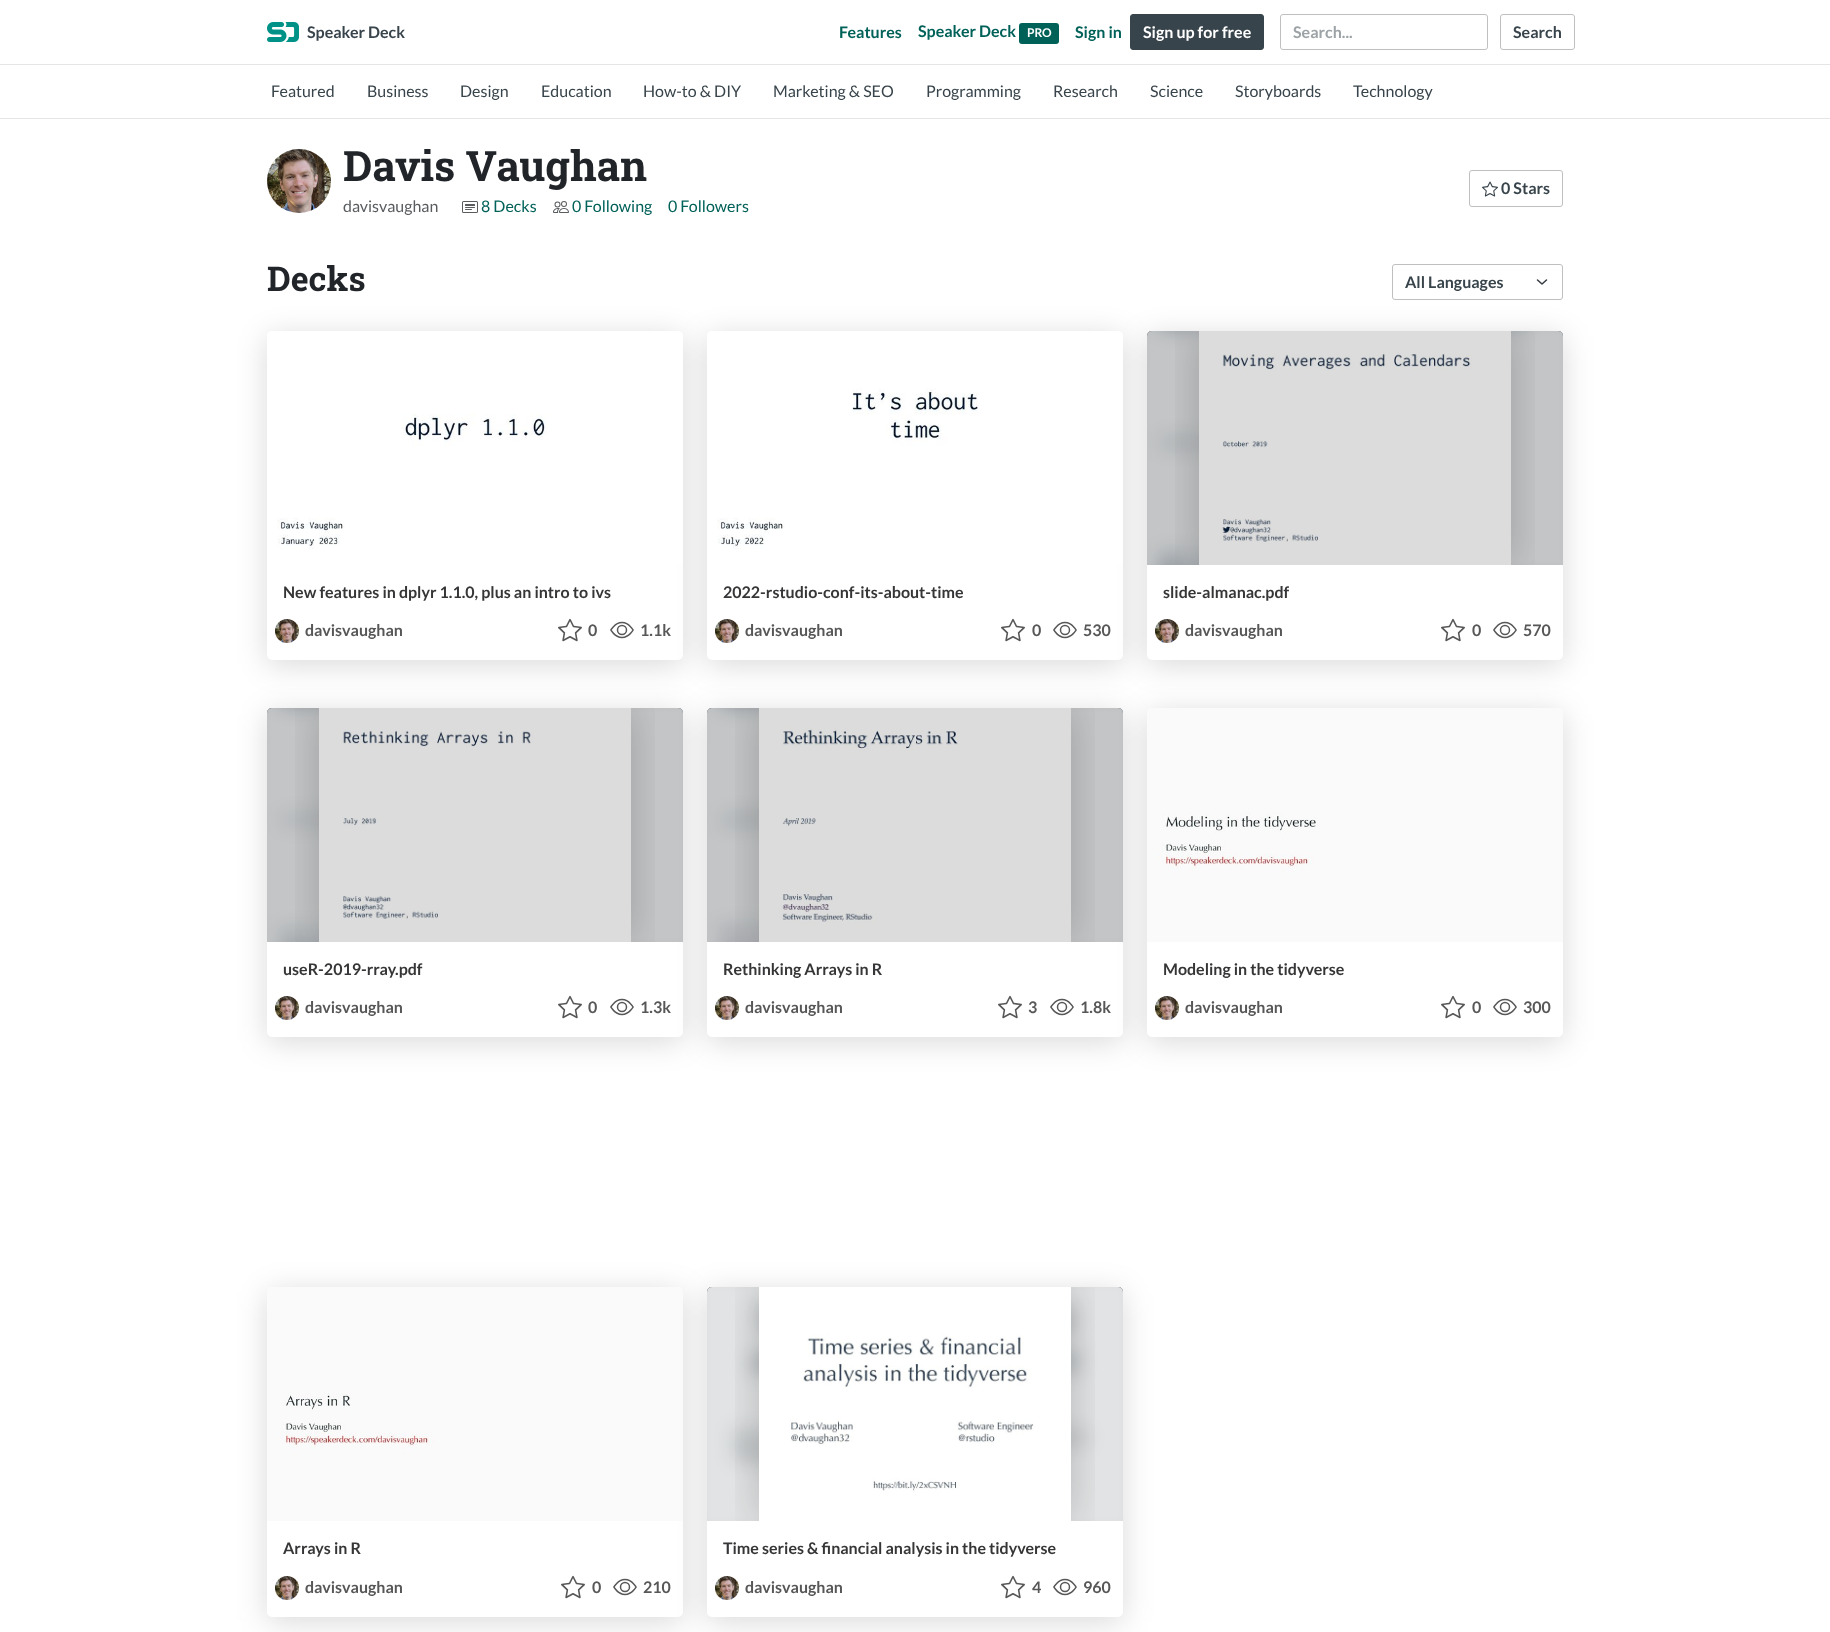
<?xml version="1.0" encoding="UTF-8"?>
<svg xmlns="http://www.w3.org/2000/svg" xmlns:xlink="http://www.w3.org/1999/xlink" width="1830" height="1632">
  <rect width="100%" height="100%" fill="#ffffff" />
  <rect y="64" width="1830" height="1" fill="#e5e5e5" />
  <image x="267" y="22" width="32" height="20" xlink:href="image1.png" />
  <rect x="1019" y="23" width="40" height="21" rx="3" fill="#006159" />
  <rect x="1130.5" y="14.5" width="133" height="35" rx="2.5" fill="#38444b" stroke="#38444b" />
  <rect x="1280.5" y="14.5" width="207" height="35" rx="2.5" fill="none" stroke="#bfbfbf" />
  <rect x="1500.5" y="14.5" width="74" height="35" rx="2.5" fill="none" stroke="#bfbfbf" />
  <rect y="118" width="1830" height="1" fill="#e5e5e5" />
  <image x="267" y="149" width="64" height="64" xlink:href="image2.png" />
  <image x="462" y="201" width="16" height="12" xlink:href="image3.png" />
  <image x="553" y="201" width="16" height="12" xlink:href="image4.png" />
  <rect x="1469.5" y="170.5" width="93" height="36" rx="2.5" fill="none" stroke="#bfbfbf" />
  <image x="1482" y="181" width="16" height="16" xlink:href="image5.png" />
  <path d="M 1537.5 280 l 4.5 4 l 4.5 -4" fill="none" stroke="#343a40" stroke-width="1.5" stroke-linecap="round" stroke-linejoin="round" />
  <rect x="1392.5" y="264.5" width="170" height="35" rx="2.5" fill="none" stroke="#bfbfbf" />
  <rect x="267" y="336" width="416" height="329" rx="5" fill="#000000" fill-opacity="0.15" filter="blur(15px)" />
  <rect x="267" y="331" width="416" height="329" rx="5" fill="#ffffff" />
  <rect x="707" y="336" width="416" height="329" rx="5" fill="#000000" fill-opacity="0.15" filter="blur(15px)" />
  <image x="267" y="331" width="416" height="5" xlink:href="image6.png" />
  <image x="267" y="331" width="416" height="234" xlink:href="image7.png" />
  <image x="275" y="619" width="24" height="24" xlink:href="image8.png" />
  <image x="558" y="618" width="24" height="24" xlink:href="image9.png" />
  <image x="610" y="621" width="24" height="18" xlink:href="image10.png" />
  <rect x="707" y="331" width="416" height="329" rx="5" fill="#ffffff" />
  <rect x="1147" y="336" width="416" height="329" rx="5" fill="#000000" fill-opacity="0.15" filter="blur(15px)" />
  <image x="707" y="331" width="416" height="5" xlink:href="image11.png" />
  <image x="707" y="331" width="416" height="234" xlink:href="image12.png" />
  <image x="715" y="619" width="24" height="24" xlink:href="image13.png" />
  <image x="1001" y="618" width="24" height="24" xlink:href="image14.png" />
  <image x="1053" y="621" width="24" height="18" xlink:href="image10.png" />
  <rect x="1147" y="331" width="416" height="329" rx="5" fill="#ffffff" />
  <path d="M 1152 331 h 406 c 3 0 5 2 5 5 v 229 h -416 v -229 c 0 -3 2 -5 5 -5 z" fill="#38444b" />
  <image x="1147" y="331" width="416" height="234" xlink:href="image15.png" />
  <image x="1175" y="331" width="360" height="234" xlink:href="image16.png" />
  <image x="1155" y="619" width="24" height="24" xlink:href="image13.png" />
  <image x="1441" y="618" width="24" height="24" xlink:href="image9.png" />
  <image x="1493" y="621" width="24" height="18" xlink:href="image10.png" />
  <rect x="267" y="713" width="416" height="329" rx="5" fill="#000000" fill-opacity="0.15" filter="blur(15px)" />
  <rect x="267" y="708" width="416" height="329" rx="5" fill="#ffffff" />
  <path d="M 272 708 h 406 c 3 0 5 2 5 5 v 229 h -416 v -229 c 0 -3 2 -5 5 -5 z" fill="#38444b" />
  <rect x="707" y="713" width="416" height="329" rx="5" fill="#000000" fill-opacity="0.15" filter="blur(15px)" />
  <image x="267" y="708" width="416" height="234" xlink:href="image17.png" />
  <image x="295" y="708" width="360" height="234" xlink:href="image18.png" />
  <image x="275" y="996" width="24" height="24" xlink:href="image19.png" />
  <image x="558" y="995" width="24" height="24" xlink:href="image20.png" />
  <image x="610" y="998" width="24" height="18" xlink:href="image10.png" />
  <rect x="707" y="708" width="416" height="329" rx="5" fill="#ffffff" />
  <path d="M 712 708 h 406 c 3 0 5 2 5 5 v 229 h -416 v -229 c 0 -3 2 -5 5 -5 z" fill="#38444b" />
  <rect x="1147" y="713" width="416" height="329" rx="5" fill="#000000" fill-opacity="0.15" filter="blur(15px)" />
  <image x="707" y="708" width="416" height="234" xlink:href="image21.png" />
  <image x="735" y="708" width="360" height="234" xlink:href="image22.png" />
  <image x="715" y="996" width="24" height="24" xlink:href="image23.png" />
  <image x="998" y="995" width="24" height="24" xlink:href="image24.png" />
  <image x="1050" y="998" width="24" height="18" xlink:href="image10.png" />
  <rect x="1147" y="708" width="416" height="329" rx="5" fill="#ffffff" />
  <image x="1147" y="708" width="416" height="5" xlink:href="image25.png" />
  <image x="1147" y="708" width="416" height="234" xlink:href="image26.png" />
  <image x="1155" y="996" width="24" height="24" xlink:href="image23.png" />
  <image x="1441" y="995" width="24" height="24" xlink:href="image20.png" />
  <image x="1493" y="998" width="24" height="18" xlink:href="image10.png" />
  <rect x="267" y="1292" width="416" height="330" rx="5" fill="#000000" fill-opacity="0.15" filter="blur(15px)" />
  <rect x="267" y="1287" width="416" height="330" rx="5" fill="#ffffff" />
  <rect x="707" y="1292" width="416" height="330" rx="5" fill="#000000" fill-opacity="0.15" filter="blur(15px)" />
  <image x="267" y="1287" width="416" height="5" xlink:href="image27.png" />
  <image x="267" y="1287" width="416" height="234" xlink:href="image28.png" />
  <image x="275" y="1576" width="24" height="24" xlink:href="image8.png" />
  <image x="561" y="1575" width="24" height="24" xlink:href="image9.png" />
  <image x="613" y="1578" width="24" height="18" xlink:href="image10.png" />
  <rect x="707" y="1287" width="416" height="330" rx="5" fill="#ffffff" />
  <path d="M 712 1287 h 406 c 3 0 5 2 5 5 v 229 h -416 v -229 c 0 -3 2 -5 5 -5 z" fill="#38444b" />
  <image x="707" y="1287" width="416" height="234" xlink:href="image29.png" />
  <image x="735" y="1287" width="360" height="234" xlink:href="image30.png" />
  <image x="715" y="1576" width="24" height="24" xlink:href="image13.png" />
  <image x="1001" y="1575" width="24" height="24" xlink:href="image14.png" />
  <image x="1053" y="1578" width="24" height="18" xlink:href="image10.png" />
  <text x="307" y="38" style="font-family: Lato; font-size: 16px; font-weight: bold; fill: #38444b">Speaker Deck</text>
  <text x="839" y="38" style="font-family: Lato; font-size: 16px; font-weight: bold; fill: #006159">Features</text>
  <text x="918" y="37" style="font-family: Lato; font-size: 16px; font-weight: bold; fill: #006159">Speaker Deck</text>
  <text x="1027" y="37" style="font-family: Lato; font-size: 12px; font-weight: bold; fill: #ffffff">PRO</text>
  <text x="1075" y="38" style="font-family: Lato; font-size: 16px; font-weight: bold; fill: #006159">Sign in</text>
  <text x="1143" y="38" style="font-family: Lato; font-size: 16px; font-weight: bold; fill: #ffffff">Sign up for free</text>
  <text x="1293" y="38" style="font-family: Lato; font-size: 16px; font-weight: bold; fill: #9ca2a5">Search...</text>
  <text x="1513" y="38" style="font-family: Lato; font-size: 16px; font-weight: bold; fill: #38444b">Search</text>
  <text x="271" y="97" style="font-family: Lato; font-size: 16px; fill: #38444b">Featured</text>
  <text x="367" y="97" style="font-family: Lato; font-size: 16px; fill: #38444b">Business</text>
  <text x="460" y="97" style="font-family: Lato; font-size: 16px; fill: #38444b">Design</text>
  <text x="541" y="97" style="font-family: Lato; font-size: 16px; fill: #38444b">Education</text>
  <text x="643" y="97" style="font-family: Lato; font-size: 16px; fill: #38444b">How-to &amp; DIY</text>
  <text x="773" y="97" style="font-family: Lato; font-size: 16px; fill: #38444b">Marketing &amp; SEO</text>
  <text x="926" y="97" style="font-family: Lato; font-size: 16px; fill: #38444b">Programming</text>
  <text x="1053" y="97" style="font-family: Lato; font-size: 16px; fill: #38444b">Research</text>
  <text x="1150" y="97" style="font-family: Lato; font-size: 16px; fill: #38444b">Science</text>
  <text x="1235" y="97" style="font-family: Lato; font-size: 16px; fill: #38444b">Storyboards</text>
  <text x="1353" y="97" style="font-family: Lato; font-size: 16px; fill: #38444b">Technology</text>
  <text x="343" y="181" style="font-family: Roboto Slab; font-size: 42px; font-weight: bold; fill: #212529">Davis Vaughan</text>
  <text x="343" y="212" style="font-family: Lato; font-size: 16px; fill: #595c5f">davisvaughan</text>
  <text x="481" y="212" style="font-family: Lato; font-size: 16px; fill: #006159">8 Decks</text>
  <text x="572" y="212" style="font-family: Lato; font-size: 16px; fill: #006159">0 Following</text>
  <text x="668" y="212" style="font-family: Lato; font-size: 16px; fill: #006159">0 Followers</text>
  <text x="1501" y="194" style="font-family: Lato; font-size: 16px; font-weight: bold; fill: #38444b">0 Stars</text>
  <text x="267" y="291" style="font-family: Roboto Slab; font-size: 34px; font-weight: bold; fill: #212529">Decks</text>
  <text x="1405" y="288" style="font-family: Lato; font-size: 16px; font-weight: bold; fill: #38444b">All Languages</text>
  <text x="283" y="598" style="font-family: Lato; font-size: 16px; font-weight: bold; fill: #363537">New features in dplyr 1.1.0, plus an intro to ivs</text>
  <text x="305" y="636" style="font-family: Lato; font-size: 16px; font-weight: bold; fill: #575757">davisvaughan</text>
  <text x="588" y="636" style="font-family: Lato; font-size: 16px; font-weight: bold; fill: #575757">0</text>
  <text x="640" y="636" style="font-family: Lato; font-size: 16px; font-weight: bold; fill: #575757">1.1k</text>
  <text x="723" y="598" style="font-family: Lato; font-size: 16px; font-weight: bold; fill: #363537">2022-rstudio-conf-its-about-time</text>
  <text x="745" y="636" style="font-family: Lato; font-size: 16px; font-weight: bold; fill: #575757">davisvaughan</text>
  <text x="1032" y="636" style="font-family: Lato; font-size: 16px; font-weight: bold; fill: #575757">0</text>
  <text x="1083" y="636" style="font-family: Lato; font-size: 16px; font-weight: bold; fill: #575757">530</text>
  <text x="1163" y="598" style="font-family: Lato; font-size: 16px; font-weight: bold; fill: #363537">slide-almanac.pdf</text>
  <text x="1185" y="636" style="font-family: Lato; font-size: 16px; font-weight: bold; fill: #575757">davisvaughan</text>
  <text x="1472" y="636" style="font-family: Lato; font-size: 16px; font-weight: bold; fill: #575757">0</text>
  <text x="1523" y="636" style="font-family: Lato; font-size: 16px; font-weight: bold; fill: #575757">570</text>
  <text x="283" y="975" style="font-family: Lato; font-size: 16px; font-weight: bold; fill: #363537">useR-2019-rray.pdf</text>
  <text x="305" y="1013" style="font-family: Lato; font-size: 16px; font-weight: bold; fill: #575757">davisvaughan</text>
  <text x="588" y="1013" style="font-family: Lato; font-size: 16px; font-weight: bold; fill: #575757">0</text>
  <text x="640" y="1013" style="font-family: Lato; font-size: 16px; font-weight: bold; fill: #575757">1.3k</text>
  <text x="723" y="975" style="font-family: Lato; font-size: 16px; font-weight: bold; fill: #363537">Rethinking Arrays in R</text>
  <text x="745" y="1013" style="font-family: Lato; font-size: 16px; font-weight: bold; fill: #575757">davisvaughan</text>
  <text x="1028" y="1013" style="font-family: Lato; font-size: 16px; font-weight: bold; fill: #575757">3</text>
  <text x="1080" y="1013" style="font-family: Lato; font-size: 16px; font-weight: bold; fill: #575757">1.8k</text>
  <text x="1163" y="975" style="font-family: Lato; font-size: 16px; font-weight: bold; fill: #363537">Modeling in the tidyverse</text>
  <text x="1185" y="1013" style="font-family: Lato; font-size: 16px; font-weight: bold; fill: #575757">davisvaughan</text>
  <text x="1472" y="1013" style="font-family: Lato; font-size: 16px; font-weight: bold; fill: #575757">0</text>
  <text x="1523" y="1013" style="font-family: Lato; font-size: 16px; font-weight: bold; fill: #575757">300</text>
  <text x="283" y="1554" style="font-family: Lato; font-size: 16px; font-weight: bold; fill: #363537">Arrays in R</text>
  <text x="305" y="1593" style="font-family: Lato; font-size: 16px; font-weight: bold; fill: #575757">davisvaughan</text>
  <text x="592" y="1593" style="font-family: Lato; font-size: 16px; font-weight: bold; fill: #575757">0</text>
  <text x="643" y="1593" style="font-family: Lato; font-size: 16px; font-weight: bold; fill: #575757">210</text>
  <text x="723" y="1554" style="font-family: Lato; font-size: 16px; font-weight: bold; fill: #363537">Time series &amp; financial analysis in the tidyverse</text>
  <text x="745" y="1593" style="font-family: Lato; font-size: 16px; font-weight: bold; fill: #575757">davisvaughan</text>
  <text x="1032" y="1593" style="font-family: Lato; font-size: 16px; font-weight: bold; fill: #575757">4</text>
  <text x="1083" y="1593" style="font-family: Lato; font-size: 16px; font-weight: bold; fill: #575757">960</text>
</svg>
